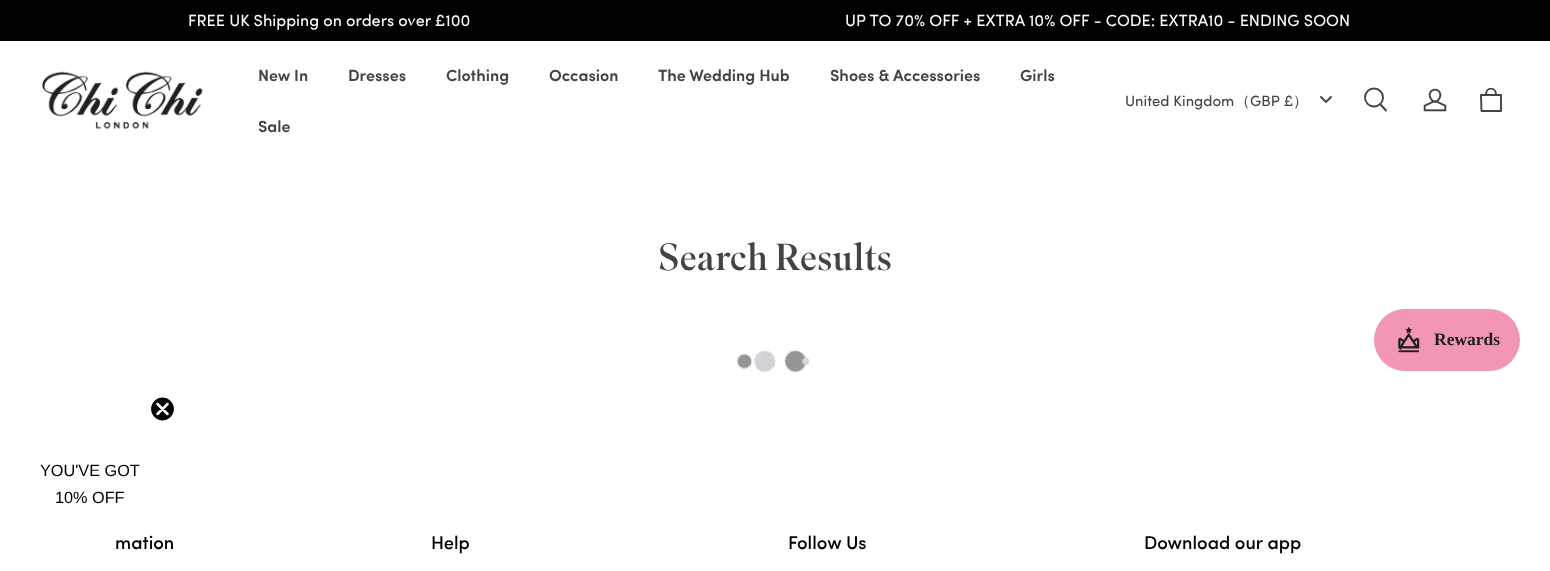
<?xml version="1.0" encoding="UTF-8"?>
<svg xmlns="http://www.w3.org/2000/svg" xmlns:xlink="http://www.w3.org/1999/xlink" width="1550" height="571">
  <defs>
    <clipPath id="clip1"><rect x="1480" y="88" width="23" height="25" /></clipPath>
  </defs>
  <rect width="100%" height="100%" fill="#ffffff" />
  <rect width="1550" height="41" fill="#000000" />
  <image x="42" y="71" width="161" height="58" xlink:href="image1.png" />
  <path d="M 1321 97 l 5 5 l 5 -5" fill="none" stroke="#434343" stroke-width="1.9" stroke-linecap="round" />
  <circle cx="1374" cy="97.5" r="9" fill="none" stroke="#434343" stroke-width="1.9" />
  <path d="M 1380.5 104.5 l 5.5 6" fill="none" stroke="#434343" stroke-width="1.9" stroke-linecap="round" />
  <image x="1423" y="88" width="24" height="24" xlink:href="image2.png" />
  <path d="M 1481.5 111 l -0.5 -16 h 20 v 16 z" fill="none" stroke="#434343" stroke-width="1.9" stroke-linecap="round" stroke-linejoin="round" />
  <g clip-path="url(#clip1)">
    <path d="M 1486 95 c 0 -8.5 10 -8.5 10 0" fill="none" stroke="#434343" stroke-width="1.9" stroke-linecap="round" stroke-linejoin="round" />
  </g>
  <image x="737" y="350" width="73" height="23" xlink:href="image3.png" />
  <rect x="1374" y="309" width="146" height="62" rx="31" fill="#f197b5" />
  <image x="1398" y="327" width="22" height="26" xlink:href="image4.png" />
  <text x="188" y="26" style="font-family: Sofia; font-size: 16.25px; fill: #ffffff">FREE UK Shipping on orders over £100</text>
  <text x="845" y="26" style="font-family: Sofia; font-size: 16.25px; fill: #ffffff">UP TO 70% OFF + EXTRA 10% OFF - CODE: EXTRA10 - ENDING SOON</text>
  <text x="258" y="81" style="font-family: Sofia; font-size: 16.25px; font-weight: 600; fill: #434343">New In</text>
  <text x="348" y="81" style="font-family: Sofia; font-size: 16.25px; font-weight: 600; fill: #434343">Dresses</text>
  <text x="446" y="81" style="font-family: Sofia; font-size: 16.25px; font-weight: 600; fill: #434343">Clothing</text>
  <text x="549" y="81" style="font-family: Sofia; font-size: 16.25px; font-weight: 600; fill: #434343">Occasion</text>
  <text x="658" y="81" style="font-family: Sofia; font-size: 16.25px; font-weight: 600; fill: #434343">The Wedding Hub</text>
  <text x="830" y="81" style="font-family: Sofia; font-size: 16.25px; font-weight: 600; fill: #434343">Shoes &amp; Accessories</text>
  <text x="1020" y="81" style="font-family: Sofia; font-size: 16.25px; font-weight: 600; fill: #434343">Girls</text>
  <text x="258" y="132" style="font-family: Sofia; font-size: 16.25px; font-weight: 600; fill: #434343">Sale</text>
  <text x="1125" y="106" style="font-family: Sofia; font-size: 15px; fill: #434343">United Kingdom</text>
  <text x="1235" y="106" style="font-family: WenQuanYi Zen Hei; font-size: 15px; font-weight: 500; fill: #434343">（</text>
  <text x="1250" y="106" style="font-family: Sofia; font-size: 15px; fill: #434343">GBP £</text>
  <text x="1293" y="106" style="font-family: WenQuanYi Zen Hei; font-size: 15px; font-weight: 500; fill: #434343">）</text>
  <text x="658" y="270" style="font-family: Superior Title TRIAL; font-size: 37.5px; fill: #434343">Search Results</text>
  <text x="1434" y="345" style="font-family: Liberation Serif; font-size: 17.5px; font-weight: bold; fill: #1f1e1e">Rewards</text>
  <text x="115" y="549" style="font-family: Sofia; font-size: 18.5px; font-weight: 500; fill: #000000">mation</text>
  <circle cx="90" cy="481" r="65" fill="#ffffff" />
  <circle cx="162.5" cy="409" r="12" fill="#000000" stroke="#ffffff" stroke-width="1.2" />
  <path d="M 157.5 404 l 10 10 m -10 0 l 10 -10 z" fill="none" stroke="#ffffff" stroke-width="2.5" stroke-linecap="round" stroke-linejoin="round" />
  <text x="55" y="503" style="font-family: Liberation Sans; font-size: 16.25px; fill: #000000">10% OFF</text>
  <text x="40" y="476" style="font-family: Liberation Sans; font-size: 16.25px; fill: #000000">YOU'VE GOT</text>
  <text x="431" y="549" style="font-family: Sofia; font-size: 18.5px; font-weight: 500; fill: #000000">Help</text>
  <text x="788" y="549" style="font-family: Sofia; font-size: 18.5px; font-weight: 500; fill: #000000">Follow Us</text>
  <text x="1144" y="549" style="font-family: Sofia; font-size: 18.5px; font-weight: 500; fill: #000000">Download our app</text>
</svg>
